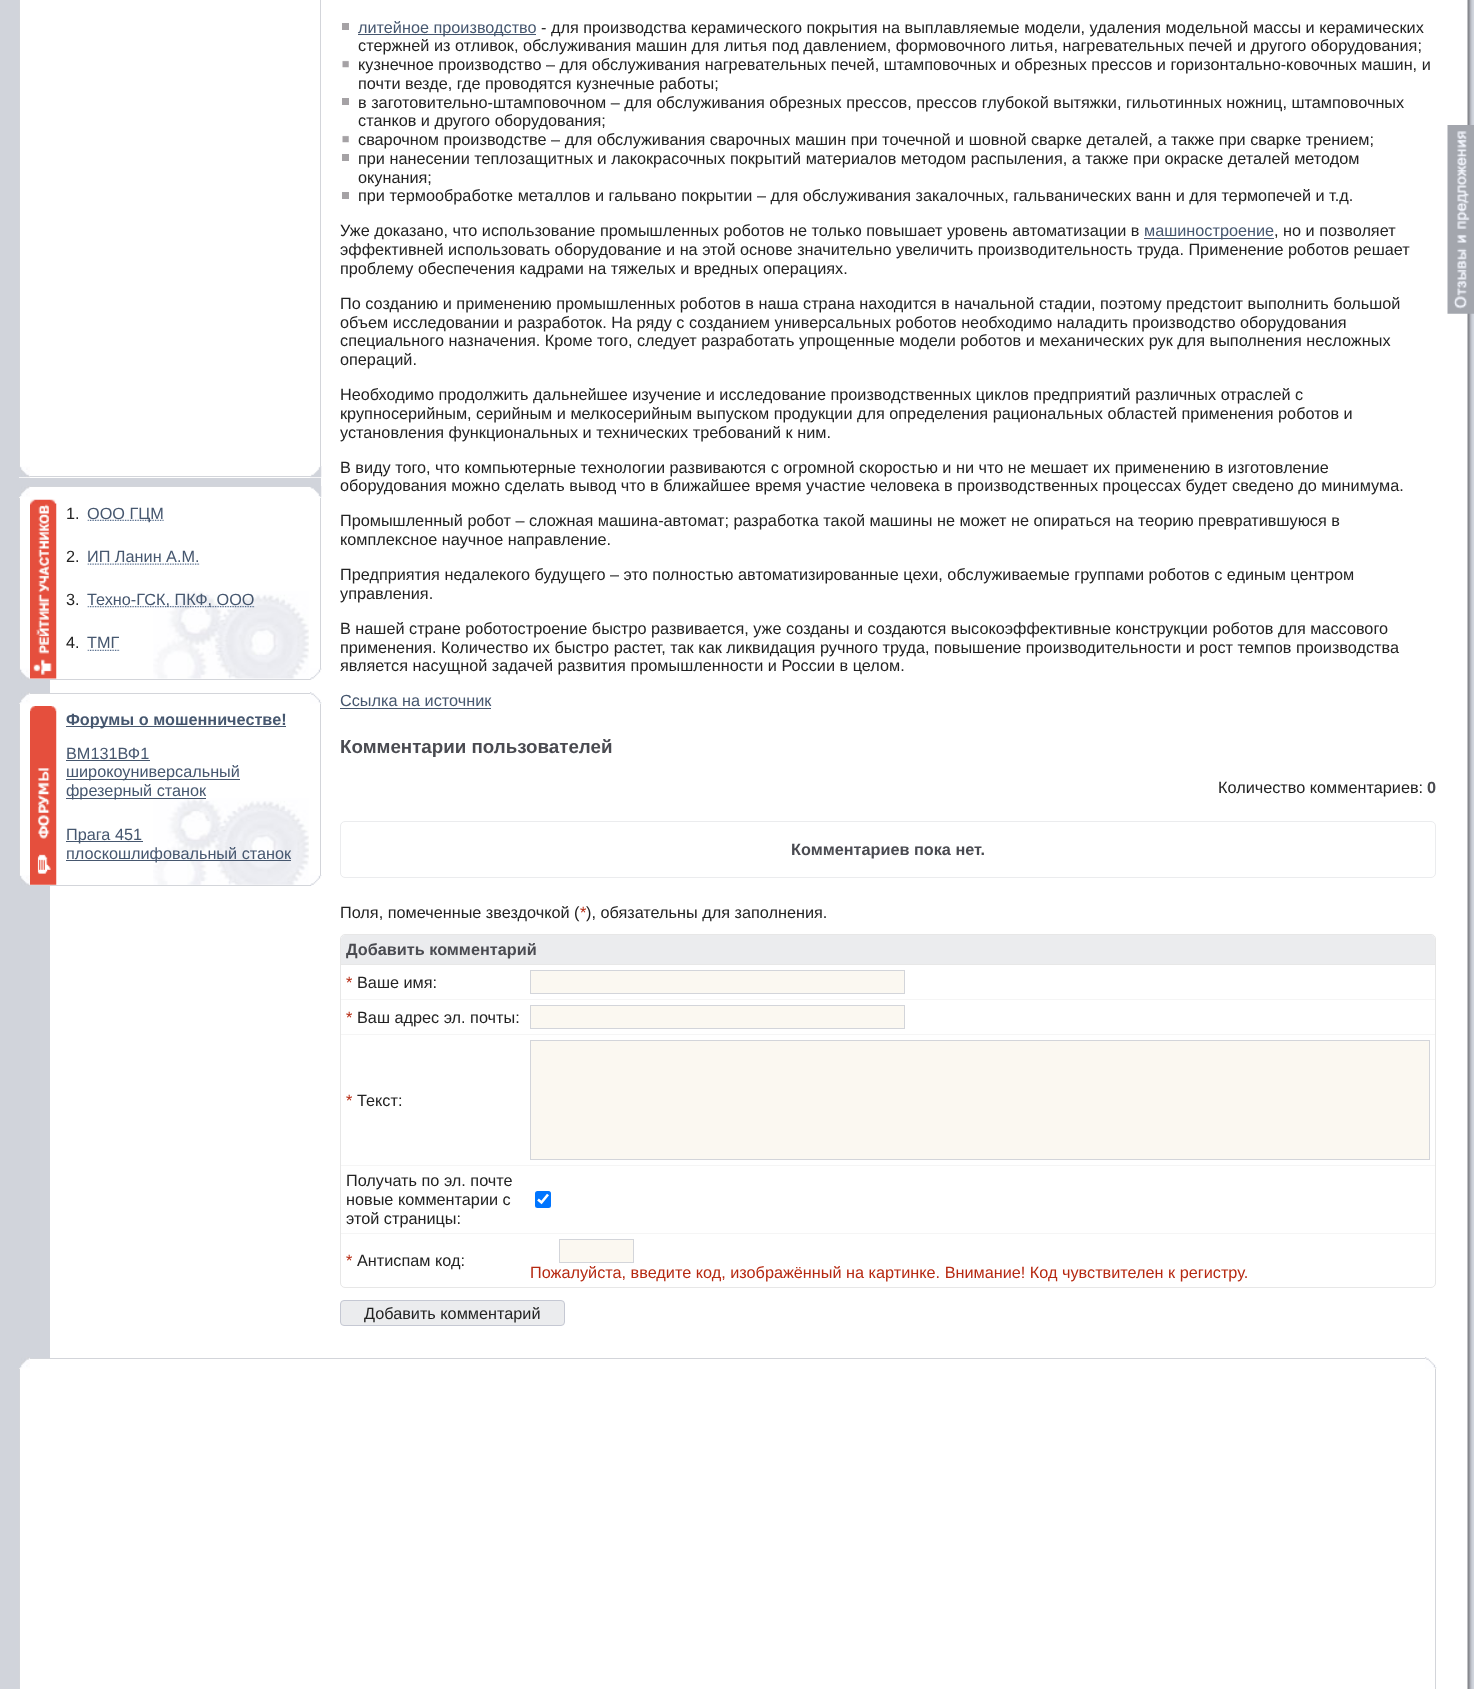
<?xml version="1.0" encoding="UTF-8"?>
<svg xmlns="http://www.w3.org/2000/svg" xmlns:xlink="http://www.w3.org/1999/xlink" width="1474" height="1689">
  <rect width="100%" height="100%" fill="#ffffff" />
  <image x="1467" y="0" width="7" height="1689" xlink:href="image1.png" />
  <rect width="19" height="478" fill="#d1d4db" />
  <rect x="320" width="1" height="466" fill="#d3d5da" />
  <rect x="19" width="1" height="466" fill="#d3d5da" />
  <image x="19" y="466" width="11" height="12" xlink:href="image2.png" />
  <rect x="30" y="476" width="280" height="1" fill="#d3d5da" />
  <image x="310" y="466" width="12" height="12" xlink:href="image3.png" />
  <rect y="478" width="321" height="8" fill="#d1d4db" />
  <rect y="486" width="19" height="193" fill="#d1d4db" />
  <image x="19" y="486" width="11" height="12" xlink:href="image4.png" />
  <rect x="19" y="498" width="1" height="171" fill="#d3d5da" />
  <rect y="679" width="50" height="14" fill="#d1d4db" />
  <image x="19" y="668" width="11" height="12" xlink:href="image5.png" />
  <rect x="30" y="486" width="280" height="1" fill="#d3d5da" />
  <rect x="50" y="679" width="260" height="1" fill="#d3d5da" />
  <image x="30" y="499" width="27" height="180" xlink:href="image6.png" />
  <image x="153" y="591" width="156" height="88" xlink:href="image7.png" />
  <image x="87" y="519" width="77" height="2" xlink:href="image8.png" />
  <image x="87" y="563" width="113" height="2" xlink:href="image9.png" />
  <image x="87" y="606" width="168" height="2" xlink:href="image10.png" />
  <image x="87" y="649" width="33" height="2" xlink:href="image11.png" />
  <image x="310" y="486" width="12" height="12" xlink:href="image12.png" />
  <rect x="320" y="498" width="1" height="171" fill="#d3d5da" />
  <image x="310" y="668" width="12" height="12" xlink:href="image13.png" />
  <rect y="693" width="19" height="193" fill="#d1d4db" />
  <image x="19" y="692" width="11" height="12" xlink:href="image14.png" />
  <rect x="19" y="704" width="1" height="171" fill="#d3d5da" />
  <image x="19" y="875" width="11" height="11" xlink:href="image15.png" />
  <rect x="30" y="693" width="280" height="1" fill="#d3d5da" />
  <rect x="30" y="885" width="280" height="1" fill="#d3d5da" />
  <image x="30" y="706" width="27" height="179" xlink:href="image16.png" />
  <image x="153" y="798" width="156" height="87" xlink:href="image17.png" />
  <rect x="66" y="726" width="220" height="1" fill="#46576f" />
  <rect x="66" y="760" width="84" height="1" fill="#46576f" />
  <rect x="66" y="779" width="174" height="1" fill="#46576f" />
  <rect x="66" y="798" width="140" height="1" fill="#46576f" />
  <rect x="66" y="841" width="77" height="1" fill="#46576f" />
  <rect x="66" y="860" width="225" height="1" fill="#46576f" />
  <image x="310" y="692" width="12" height="12" xlink:href="image18.png" />
  <rect x="320" y="704" width="1" height="171" fill="#d3d5da" />
  <image x="310" y="875" width="12" height="11" xlink:href="image19.png" />
  <rect y="886" width="50" height="472" fill="#d1d4db" />
  <rect x="342" y="23" width="7" height="7" fill="#a5a2a5" />
  <rect x="358" y="34" width="178" height="1" fill="#46576f" />
  <image x="342" y="60" width="7" height="8" xlink:href="image20.png" />
  <rect x="342" y="98" width="7" height="7" fill="#a5a2a5" />
  <image x="342" y="135" width="7" height="8" xlink:href="image20.png" />
  <rect x="342" y="154" width="7" height="7" fill="#a5a2a5" />
  <rect x="342" y="192" width="7" height="7" fill="#a5a2a5" />
  <rect x="1144" y="238" width="130" height="1" fill="#46576f" />
  <rect x="340" y="708" width="151" height="1" fill="#46576f" />
  <rect x="340.5" y="821.5" width="1095" height="56" rx="4.5" fill="none" stroke="#ebecee" />
  <rect x="340.5" y="934.5" width="1095" height="353" rx="4.5" fill="none" stroke="#e7e7e7" />
  <path d="M 345 935 h 1086 c 2 0 4 2 4 4 v 26 h -1094 v -26 c 0 -2 2 -4 4 -4 z" fill="#ebecee" />
  <rect x="341" y="964" width="1094" height="1" fill="#e7e7e7" />
  <rect x="341" y="999" width="1094" height="1" fill="#f5f5f5" />
  <rect x="530.5" y="970.5" width="374" height="23" fill="#fbf8f1" stroke="#d3d5da" />
  <rect x="341" y="1034" width="1094" height="1" fill="#f5f5f5" />
  <rect x="530.5" y="1005.5" width="374" height="23" fill="#fbf8f1" stroke="#d3d5da" />
  <rect x="341" y="1165" width="1094" height="1" fill="#f5f5f5" />
  <rect x="530.5" y="1040.5" width="899" height="119" fill="#fbf8f1" stroke="#d3d5da" />
  <rect x="341" y="1233" width="1094" height="1" fill="#f5f5f5" />
  <rect x="535" y="1191" width="16" height="17" rx="2.5" fill="#0075ff" />
  <path d="M 538 1199.5 l 3.5 3 l 6.5 -8" fill="none" stroke="#ffffff" stroke-width="2.6" />
  <rect x="559.5" y="1239.5" width="74" height="23" fill="#fbf8f1" stroke="#d3d5da" />
  <rect x="340.5" y="1300.5" width="224" height="25" rx="3.5" fill="#ebecee" stroke="#c5c8d3" />
  <rect y="1358" width="19" height="331" fill="#d1d4db" />
  <image x="19" y="1357" width="11" height="12" xlink:href="image14.png" />
  <rect x="19" y="1369" width="1" height="320" fill="#d3d5da" />
  <rect x="30" y="1358" width="1395" height="1" fill="#d3d5da" />
  <image x="1425" y="1357" width="12" height="12" xlink:href="image18.png" />
  <rect x="1435" y="1369" width="1" height="320" fill="#d3d5da" />
  <image x="1447" y="125" width="27" height="189" xlink:href="image21.png" />
  <text x="66" y="519" style="font-family: Liberation Sans; font-size: 16.25px; fill: #222222">1.</text>
  <text x="87" y="519" style="font-family: Liberation Sans; font-size: 16.25px; fill: #46576f">ООО ГЦМ</text>
  <text x="66" y="562" style="font-family: Liberation Sans; font-size: 16.25px; fill: #222222">2.</text>
  <text x="87" y="562" style="font-family: Liberation Sans; font-size: 16.25px; fill: #46576f">ИП Ланин А.М.</text>
  <text x="66" y="605" style="font-family: Liberation Sans; font-size: 16.25px; fill: #222222">3.</text>
  <text x="87" y="605" style="font-family: Liberation Sans; font-size: 16.25px; fill: #46576f">Техно-ГСК, ПКФ, ООО</text>
  <text x="66" y="648" style="font-family: Liberation Sans; font-size: 16.25px; fill: #222222">4.</text>
  <text x="87" y="648" style="font-family: Liberation Sans; font-size: 16.25px; fill: #46576f">ТМГ</text>
  <text x="66" y="725" style="font-family: Liberation Sans; font-size: 16.25px; font-weight: bold; fill: #46576f">Форумы о мошенничестве!</text>
  <text x="66" y="759" style="font-family: Liberation Sans; font-size: 16.25px; fill: #46576f">ВМ131ВФ1</text>
  <text x="66" y="777" style="font-family: Liberation Sans; font-size: 16.25px; fill: #46576f">широкоуниверсальный</text>
  <text x="66" y="796" style="font-family: Liberation Sans; font-size: 16.25px; fill: #46576f">фрезерный станок</text>
  <text x="66" y="840" style="font-family: Liberation Sans; font-size: 16.25px; fill: #46576f">Прага 451</text>
  <text x="66" y="859" style="font-family: Liberation Sans; font-size: 16.25px; fill: #46576f">плоскошлифовальный станок</text>
  <text x="358" y="33" style="font-family: Liberation Sans; font-size: 16.25px; fill: #46576f">литейное производство</text>
  <text x="541" y="33" style="font-family: Liberation Sans; font-size: 16.25px; fill: #222222">- для производства керамического покрытия на выплавляемые модели, удаления модельной массы и керамических</text>
  <text x="358" y="51" style="font-family: Liberation Sans; font-size: 16.25px; fill: #222222">стержней из отливок, обслуживания машин для литья под давлением, формовочного литья, нагревательных печей и другого оборудования;</text>
  <text x="358" y="70" style="font-family: Liberation Sans; font-size: 16.25px; fill: #222222">кузнечное производство – для обслуживания нагревательных печей, штамповочных и обрезных прессов и горизонтально-ковочных машин, и</text>
  <text x="358" y="89" style="font-family: Liberation Sans; font-size: 16.25px; fill: #222222">почти везде, где проводятся кузнечные работы;</text>
  <text x="358" y="108" style="font-family: Liberation Sans; font-size: 16.25px; fill: #222222">в заготовительно-штамповочном – для обслуживания обрезных прессов, прессов глубокой вытяжки, гильотинных ножниц, штамповочных</text>
  <text x="358" y="126" style="font-family: Liberation Sans; font-size: 16.25px; fill: #222222">станков и другого оборудования;</text>
  <text x="358" y="145" style="font-family: Liberation Sans; font-size: 16.25px; fill: #222222">сварочном производстве – для обслуживания сварочных машин при точечной и шовной сварке деталей, а также при сварке трением;</text>
  <text x="358" y="164" style="font-family: Liberation Sans; font-size: 16.25px; fill: #222222">при нанесении теплозащитных и лакокрасочных покрытий материалов методом распыления, а также при окраске деталей методом</text>
  <text x="358" y="183" style="font-family: Liberation Sans; font-size: 16.25px; fill: #222222">окунания;</text>
  <text x="358" y="201" style="font-family: Liberation Sans; font-size: 16.25px; fill: #222222">при термообработке металлов и гальвано покрытии – для обслуживания закалочных, гальванических ванн и для термопечей и т.д.</text>
  <text x="340" y="236" style="font-family: Liberation Sans; font-size: 16.25px; fill: #222222">Уже доказано, что использование промышленных роботов не только повышает уровень автоматизации в</text>
  <text x="1144" y="236" style="font-family: Liberation Sans; font-size: 16.25px; fill: #46576f">машиностроение</text>
  <text x="1274" y="236" style="font-family: Liberation Sans; font-size: 16.25px; fill: #222222">, но и позволяет</text>
  <text x="340" y="255" style="font-family: Liberation Sans; font-size: 16.25px; fill: #222222">эффективней использовать оборудование и на этой основе значительно увеличить производительность труда. Применение роботов решает</text>
  <text x="340" y="274" style="font-family: Liberation Sans; font-size: 16.25px; fill: #222222">проблему обеспечения кадрами на тяжелых и вредных операциях.</text>
  <text x="340" y="309" style="font-family: Liberation Sans; font-size: 16.25px; fill: #222222">По созданию и применению промышленных роботов в наша страна находится в начальной стадии, поэтому предстоит выполнить большой</text>
  <text x="340" y="328" style="font-family: Liberation Sans; font-size: 16.25px; fill: #222222">объем исследовании и разработок. На ряду с созданием универсальных роботов необходимо наладить производство оборудования</text>
  <text x="340" y="346" style="font-family: Liberation Sans; font-size: 16.25px; fill: #222222">специального назначения. Кроме того, следует разработать упрощенные модели роботов и механических рук для выполнения несложных</text>
  <text x="340" y="365" style="font-family: Liberation Sans; font-size: 16.25px; fill: #222222">операций.</text>
  <text x="340" y="400" style="font-family: Liberation Sans; font-size: 16.25px; fill: #222222">Необходимо продолжить дальнейшее изучение и исследование производственных циклов предприятий различных отраслей с</text>
  <text x="340" y="419" style="font-family: Liberation Sans; font-size: 16.25px; fill: #222222">крупносерийным, серийным и мелкосерийным выпуском продукции для определения рациональных областей применения роботов и</text>
  <text x="340" y="438" style="font-family: Liberation Sans; font-size: 16.25px; fill: #222222">установления функциональных и технических требований к ним.</text>
  <text x="340" y="473" style="font-family: Liberation Sans; font-size: 16.25px; fill: #222222">В виду того, что компьютерные технологии развиваются с огромной скоростью и ни что не мешает их применению в изготовление</text>
  <text x="340" y="491" style="font-family: Liberation Sans; font-size: 16.25px; fill: #222222">оборудования можно сделать вывод что в ближайшее время участие человека в производственных процессах будет сведено до минимума.</text>
  <text x="340" y="526" style="font-family: Liberation Sans; font-size: 16.25px; fill: #222222">Промышленный робот – сложная машина-автомат; разработка такой машины не может не опираться на теорию превратившуюся в</text>
  <text x="340" y="545" style="font-family: Liberation Sans; font-size: 16.25px; fill: #222222">комплексное научное направление.</text>
  <text x="340" y="580" style="font-family: Liberation Sans; font-size: 16.25px; fill: #222222">Предприятия недалекого будущего – это полностью автоматизированные цехи, обслуживаемые группами роботов с единым центром</text>
  <text x="340" y="599" style="font-family: Liberation Sans; font-size: 16.25px; fill: #222222">управления.</text>
  <text x="340" y="634" style="font-family: Liberation Sans; font-size: 16.25px; fill: #222222">В нашей стране роботостроение быстро развивается, уже созданы и создаются высокоэффективные конструкции роботов для массового</text>
  <text x="340" y="653" style="font-family: Liberation Sans; font-size: 16.25px; fill: #222222">применения. Количество их быстро растет, так как ликвидация ручного труда, повышение производительности и рост темпов производства</text>
  <text x="340" y="671" style="font-family: Liberation Sans; font-size: 16.25px; fill: #222222">является насущной задачей развития промышленности и России в целом.</text>
  <text x="340" y="706" style="font-family: Liberation Sans; font-size: 16.25px; fill: #46576f">Ссылка на источник</text>
  <text x="340" y="753" style="font-family: Liberation Sans; font-size: 18.75px; font-weight: bold; fill: #4a4b51">Комментарии пользователей</text>
  <text x="1218" y="793" style="font-family: Liberation Sans; font-size: 16.25px; fill: #222222">Количество комментариев:</text>
  <text x="1427" y="793" style="font-family: Liberation Sans; font-size: 16.25px; font-weight: bold; fill: #4a4b51">0</text>
  <text x="791" y="855" style="font-family: Liberation Sans; font-size: 16.25px; font-weight: bold; fill: #4a4b51">Комментариев пока нет.</text>
  <text x="340" y="918" style="font-family: Liberation Sans; font-size: 16.25px; fill: #222222">Поля, помеченные звездочкой (</text>
  <text x="580" y="918" style="font-family: Liberation Sans; font-size: 16.25px; fill: #b62911">*</text>
  <text x="586" y="918" style="font-family: Liberation Sans; font-size: 16.25px; fill: #222222">), обязательны для заполнения.</text>
  <text x="346" y="955" style="font-family: Liberation Sans; font-size: 16.25px; font-weight: bold; fill: #4a4b51">Добавить комментарий</text>
  <text x="346" y="988" style="font-family: Liberation Sans; font-size: 16.25px; fill: #b62911">*</text>
  <text x="357" y="988" style="font-family: Liberation Sans; font-size: 16.25px; fill: #222222">Ваше имя:</text>
  <text x="346" y="1023" style="font-family: Liberation Sans; font-size: 16.25px; fill: #b62911">*</text>
  <text x="357" y="1023" style="font-family: Liberation Sans; font-size: 16.25px; fill: #222222">Ваш адрес эл. почты:</text>
  <text x="346" y="1106" style="font-family: Liberation Sans; font-size: 16.25px; fill: #b62911">*</text>
  <text x="357" y="1106" style="font-family: Liberation Sans; font-size: 16.25px; fill: #222222">Текст:</text>
  <text x="346" y="1186" style="font-family: Liberation Sans; font-size: 16.25px; fill: #222222">Получать по эл. почте</text>
  <text x="346" y="1205" style="font-family: Liberation Sans; font-size: 16.25px; fill: #222222">новые комментарии с</text>
  <text x="346" y="1224" style="font-family: Liberation Sans; font-size: 16.25px; fill: #222222">этой страницы:</text>
  <text x="346" y="1266" style="font-family: Liberation Sans; font-size: 16.25px; fill: #b62911">*</text>
  <text x="357" y="1266" style="font-family: Liberation Sans; font-size: 16.25px; fill: #222222">Антиспам код:</text>
  <text x="530" y="1278" style="font-family: Liberation Sans; font-size: 16.25px; fill: #b62911">Пожалуйста, введите код, изображённый на картинке. Внимание! Код чувствителен к регистру.</text>
  <text x="364" y="1319" style="font-family: Liberation Sans; font-size: 16.25px; fill: #222222">Добавить комментарий</text>
</svg>
